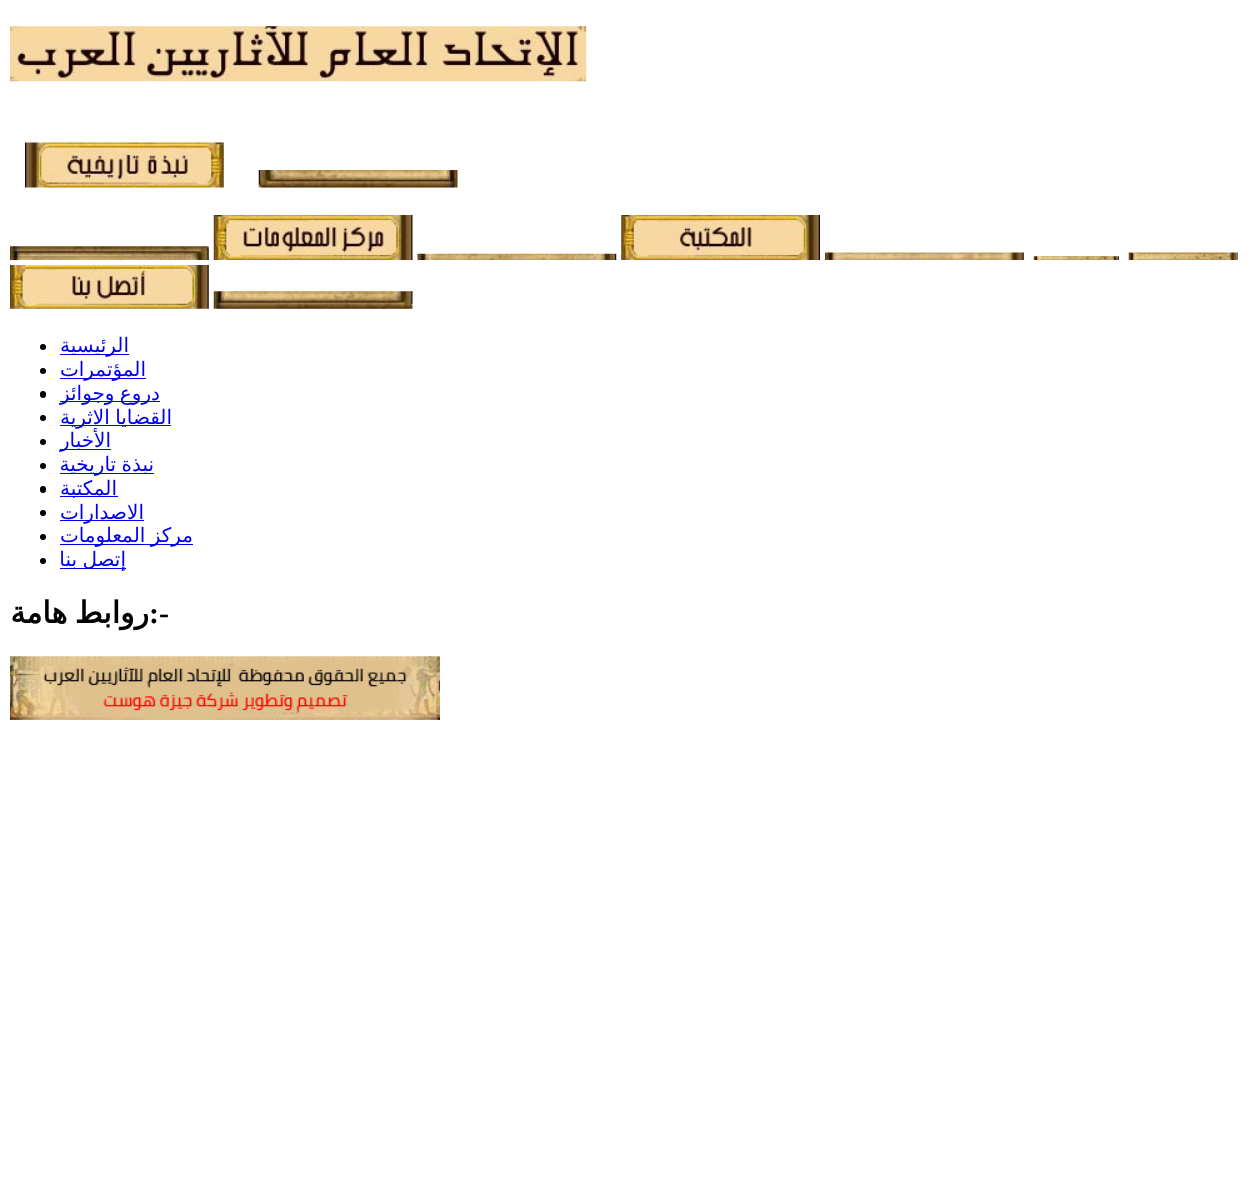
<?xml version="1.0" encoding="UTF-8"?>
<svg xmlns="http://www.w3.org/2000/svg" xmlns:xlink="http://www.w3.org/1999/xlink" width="1252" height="1201">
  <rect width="100%" height="100%" fill="#ffffff" />
  <image x="10" y="26" width="577" height="56" xlink:href="image1.png" />
  <image x="258" y="170" width="200" height="18" xlink:href="image2.png" />
  <image x="25" y="142" width="199" height="46" xlink:href="image3.png" />
  <image x="1128" y="252" width="110" height="8" xlink:href="image4.png" />
  <image x="1033" y="256" width="86" height="4" xlink:href="image5.png" />
  <image x="825" y="252" width="199" height="8" xlink:href="image6.png" />
  <image x="621" y="215" width="199" height="45" xlink:href="image7.png" />
  <image x="417" y="253" width="200" height="7" xlink:href="image8.png" />
  <image x="213" y="215" width="200" height="45" xlink:href="image9.png" />
  <image x="10" y="246" width="199" height="14" xlink:href="image10.png" />
  <image x="213" y="291" width="200" height="18" xlink:href="image11.png" />
  <image x="10" y="265" width="199" height="44" xlink:href="image12.png" />
  <rect x="60" y="354" width="69" height="1" fill="#0000ee" />
  <circle cx="43" cy="347" r="3" fill="#000000" />
  <rect x="60" y="378" width="86" height="1" fill="#0000ee" />
  <circle cx="43" cy="371" r="3" fill="#000000" />
  <rect x="60" y="401" width="100" height="1" fill="#0000ee" />
  <rect x="40" y="391" width="6" height="7" rx="3" fill="#000000" />
  <rect x="60" y="425" width="111" height="1" fill="#0000ee" />
  <circle cx="43" cy="418" r="3" fill="#000000" />
  <rect x="60" y="449" width="51" height="1" fill="#0000ee" />
  <circle cx="43" cy="442" r="3" fill="#000000" />
  <rect x="60" y="473" width="94" height="1" fill="#0000ee" />
  <circle cx="43" cy="466" r="3" fill="#000000" />
  <rect x="60" y="496" width="58" height="1" fill="#0000ee" />
  <rect x="40" y="486" width="6" height="7" rx="3" fill="#000000" />
  <rect x="60" y="520" width="84" height="1" fill="#0000ee" />
  <circle cx="43" cy="513" r="3" fill="#000000" />
  <rect x="60" y="544" width="133" height="1" fill="#0000ee" />
  <circle cx="43" cy="537" r="3" fill="#000000" />
  <rect x="60" y="568" width="66" height="1" fill="#0000ee" />
  <circle cx="43" cy="561" r="3" fill="#000000" />
  <image x="10" y="656" width="430" height="64" xlink:href="image13.png" />
  <text x="129" y="352" style="font-family: DejaVu Sans; font-size: 20px; direction: rtl; fill: #0000ee">الرئيسية</text>
  <text x="146" y="376" style="font-family: DejaVu Sans; font-size: 20px; direction: rtl; fill: #0000ee">المؤتمرات</text>
  <text x="160" y="400" word-spacing="-1" style="font-family: DejaVu Sans; font-size: 20px; direction: rtl; fill: #0000ee">دروع وجوائز</text>
  <text x="172" y="424" word-spacing="-1" style="font-family: DejaVu Sans; font-size: 20px; direction: rtl; fill: #0000ee">القضايا الاثرية</text>
  <text x="111" y="447" style="font-family: DejaVu Sans; font-size: 20px; direction: rtl; fill: #0000ee">الأخبار</text>
  <text x="154" y="471" word-spacing="-1" style="font-family: DejaVu Sans; font-size: 20px; direction: rtl; fill: #0000ee">نبذة تاريخية</text>
  <text x="117" y="495" style="font-family: DejaVu Sans; font-size: 20px; direction: rtl; fill: #0000ee">المكتبة</text>
  <text x="144" y="519" style="font-family: DejaVu Sans; font-size: 20px; direction: rtl; fill: #0000ee">الاصدارات</text>
  <text x="193" y="542" word-spacing="-1" style="font-family: DejaVu Sans; font-size: 20px; direction: rtl; fill: #0000ee">مركز المعلومات</text>
  <text x="126" y="566" word-spacing="-1" style="font-family: DejaVu Sans; font-size: 20px; direction: rtl; fill: #0000ee">إتصل بنا</text>
  <text x="149" y="623" style="font-family: Liberation Serif; font-size: 30px; font-weight: bold; fill: #000000">:-</text>
  <text x="149" y="623" word-spacing="-2" style="font-family: DejaVu Sans; font-size: 30px; font-weight: bold; direction: rtl; fill: #000000">روابط هامة</text>
</svg>
